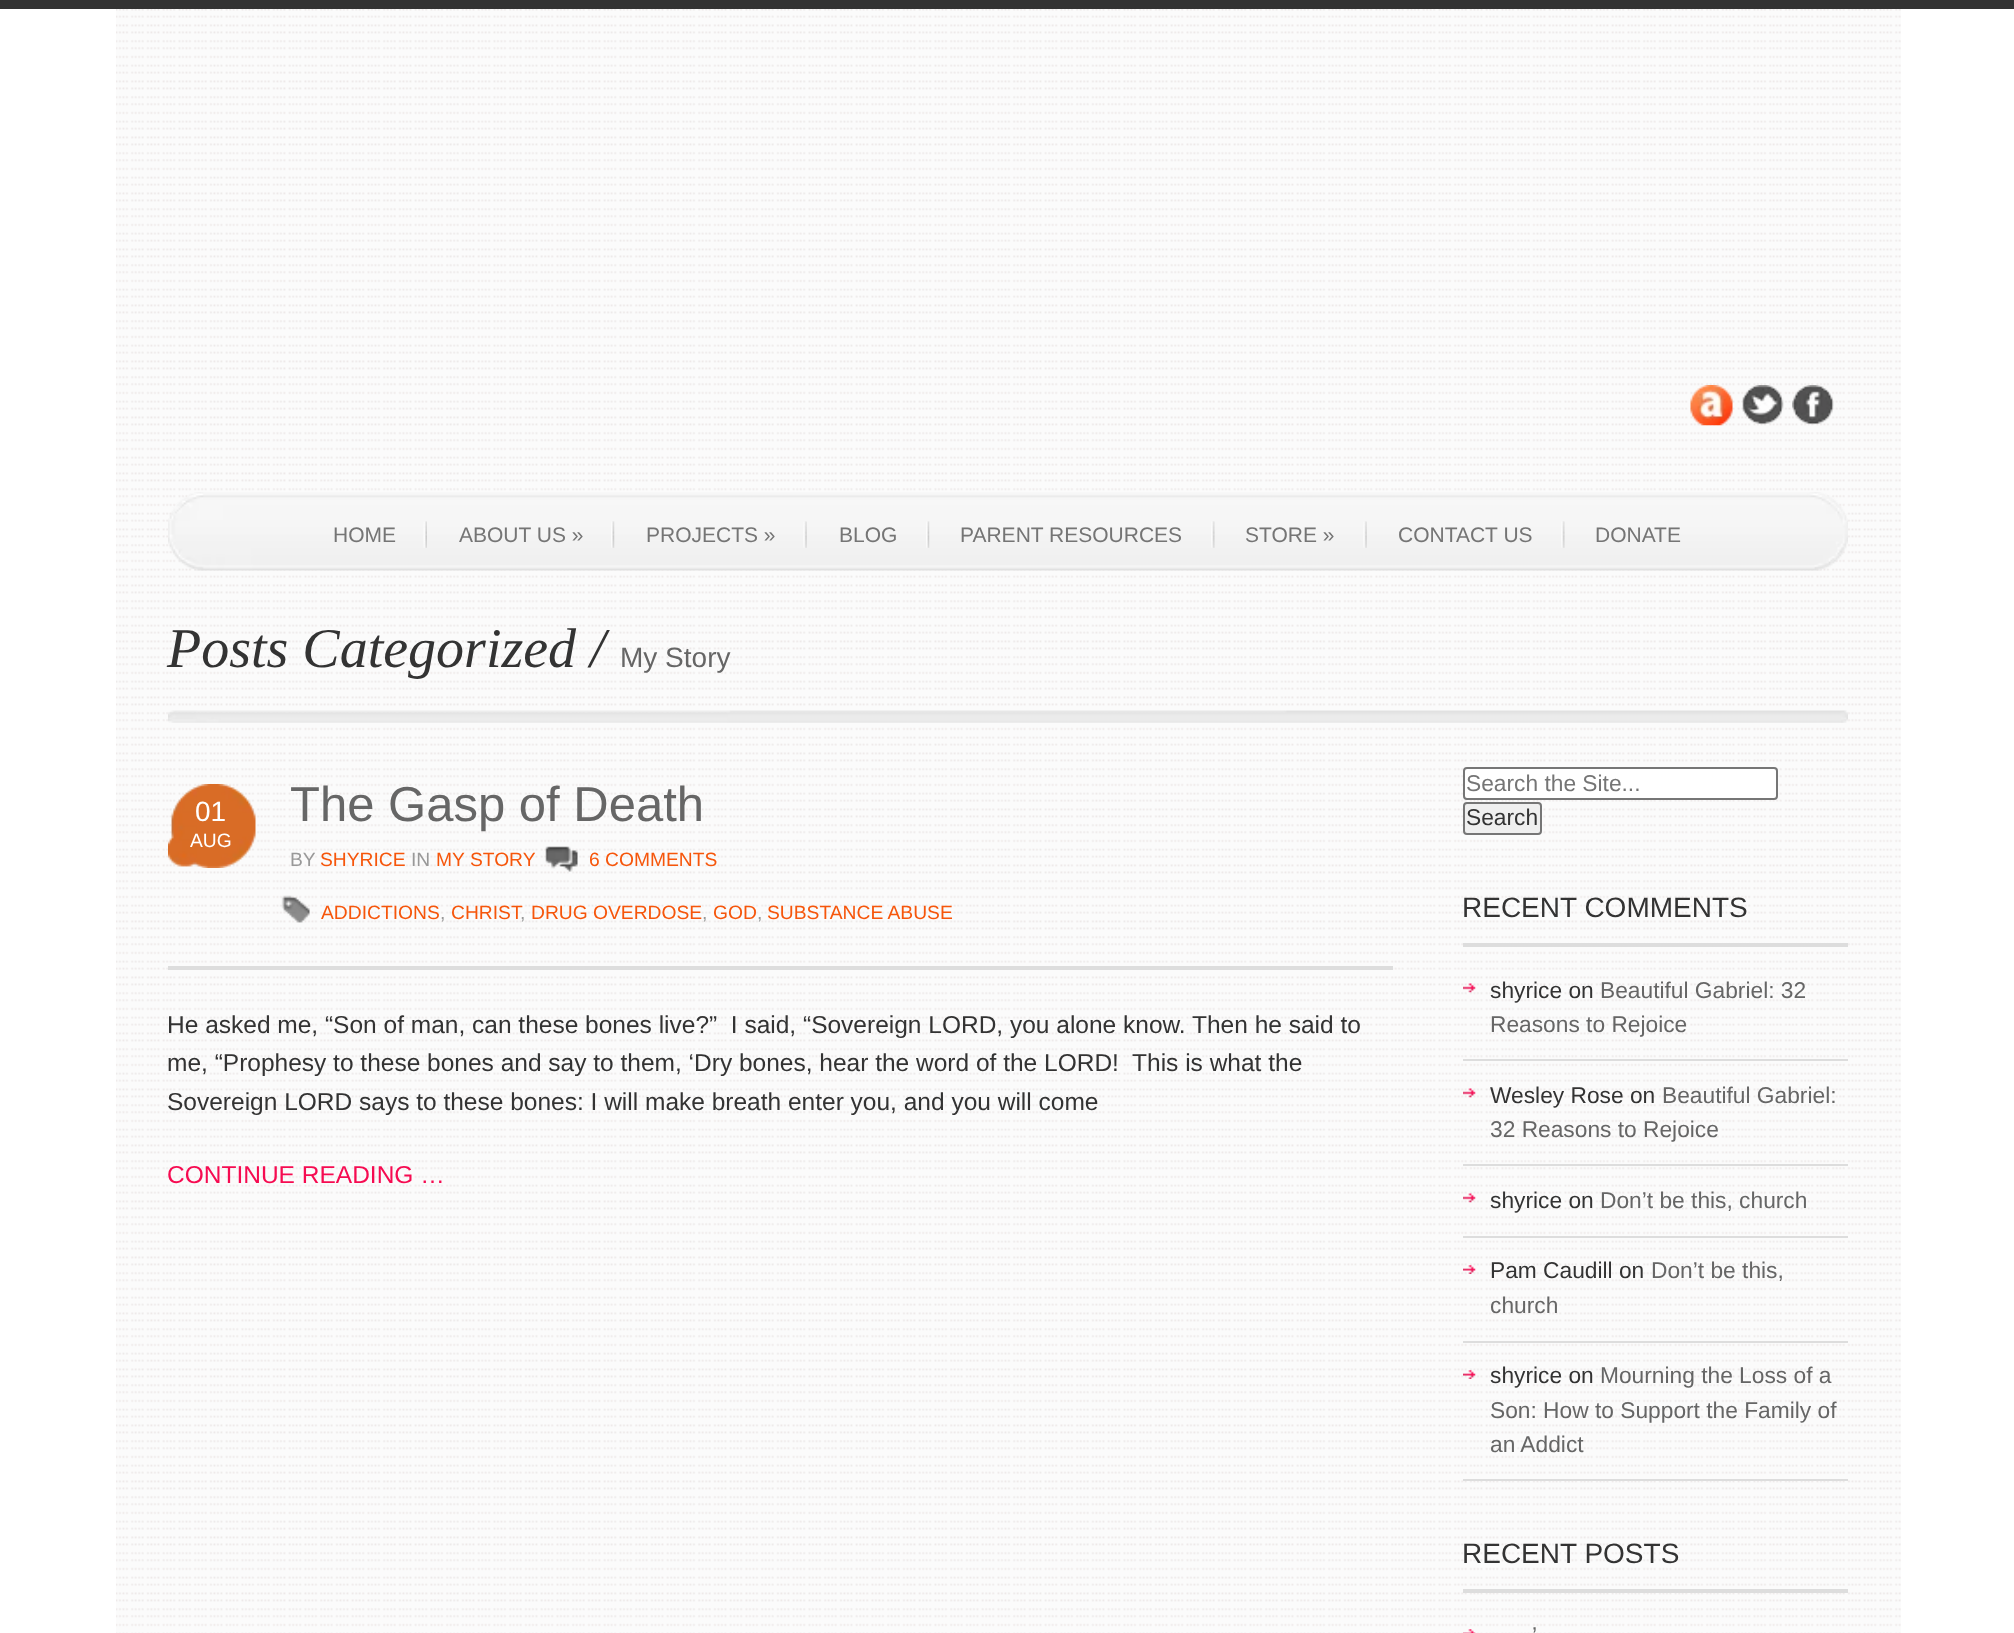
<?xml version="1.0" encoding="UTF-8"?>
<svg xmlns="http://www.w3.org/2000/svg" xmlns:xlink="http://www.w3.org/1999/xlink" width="2014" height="1633">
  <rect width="100%" height="100%" fill="#ffffff" />
  <rect width="2014" height="9" fill="#333333" />
  <rect x="116" y="9" width="1785" height="1624" fill="#fbfbfb" />
  <image x="116" y="9" width="1785" height="1624" xlink:href="image1.png" />
  <image x="1690" y="385" width="43" height="41" xlink:href="image2.png" />
  <image x="1742" y="385" width="42" height="40" xlink:href="image3.png" />
  <image x="1792" y="385" width="42" height="40" xlink:href="image4.png" />
  <image x="168" y="492" width="1680" height="79" xlink:href="image5.png" />
  <image x="423" y="521" width="4" height="27" xlink:href="image6.png" />
  <image x="611" y="521" width="4" height="27" xlink:href="image7.png" />
  <image x="803" y="521" width="4" height="27" xlink:href="image8.png" />
  <image x="926" y="521" width="4" height="27" xlink:href="image9.png" />
  <image x="1211" y="521" width="4" height="27" xlink:href="image10.png" />
  <image x="1363" y="521" width="4" height="27" xlink:href="image8.png" />
  <image x="1561" y="521" width="4" height="27" xlink:href="image10.png" />
  <image x="168" y="710" width="1680" height="13" xlink:href="image11.png" />
  <rect x="168" y="966" width="1225" height="4" fill="#dddddd" />
  <image x="168" y="784" width="88" height="84" xlink:href="image12.png" />
  <image x="545" y="846" width="33" height="26" xlink:href="image13.png" />
  <image x="281" y="895" width="29" height="28" xlink:href="image14.png" />
  <rect x="1464" y="768" width="313" height="31" rx="3" fill="#ffffff" stroke="#767676" stroke-width="2" />
  <rect x="1464" y="803" width="77" height="31" rx="3" fill="#efefef" stroke="#767676" stroke-width="2" />
  <rect x="1463" y="943" width="385" height="4" fill="#dddddd" />
  <image x="1463" y="983" width="13" height="10" xlink:href="image15.png" />
  <rect x="1463" y="1059" width="385" height="2" fill="#dddddd" />
  <image x="1463" y="1088" width="13" height="10" xlink:href="image16.png" />
  <rect x="1463" y="1164" width="385" height="2" fill="#dddddd" />
  <image x="1463" y="1193" width="13" height="10" xlink:href="image17.png" />
  <rect x="1463" y="1236" width="385" height="2" fill="#dddddd" />
  <image x="1463" y="1265" width="13" height="9" xlink:href="image18.png" />
  <rect x="1463" y="1341" width="385" height="2" fill="#dddddd" />
  <image x="1463" y="1370" width="13" height="9" xlink:href="image19.png" />
  <rect x="1463" y="1479" width="385" height="2" fill="#dddddd" />
  <rect x="1463" y="1589" width="385" height="4" fill="#dddddd" />
  <image x="1463" y="1629" width="13" height="4" xlink:href="image20.png" />
  <text x="333" y="542" style="font-family: Liberation Sans; font-size: 21px; fill: #757575">HOME</text>
  <text x="459" y="542" style="font-family: Liberation Sans; font-size: 21px; fill: #757575">ABOUT US »</text>
  <text x="646" y="542" style="font-family: Liberation Sans; font-size: 21px; fill: #757575">PROJECTS »</text>
  <text x="839" y="542" style="font-family: Liberation Sans; font-size: 21px; fill: #757575">BLOG</text>
  <text x="960" y="542" style="font-family: Liberation Sans; font-size: 21px; fill: #757575">PARENT RESOURCES</text>
  <text x="1245" y="542" style="font-family: Liberation Sans; font-size: 21px; fill: #757575">STORE »</text>
  <text x="1398" y="542" style="font-family: Liberation Sans; font-size: 21px; fill: #757575">CONTACT US</text>
  <text x="1595" y="542" style="font-family: Liberation Sans; font-size: 21px; fill: #757575">DONATE</text>
  <text x="167" y="667" style="font-family: Liberation Serif; font-size: 56px; font-style: italic; fill: #333333">Posts Categorized /</text>
  <text x="620" y="667" style="font-family: Liberation Sans; font-size: 28px; fill: #666666">My Story</text>
  <text x="195" y="821" style="font-family: Liberation Sans; font-size: 28px; fill: #ffffff">01</text>
  <text x="190" y="847" style="font-family: Liberation Sans; font-size: 19.25px; fill: #ffffff">AUG</text>
  <text x="290" y="821" style="font-family: Liberation Sans; font-size: 49px; fill: #666666">The Gasp of Death</text>
  <text x="290" y="866" style="font-family: Liberation Sans; font-size: 19.25px; fill: #999999">BY</text>
  <text x="320" y="866" style="font-family: Liberation Sans; font-size: 19.25px; fill: #f6560b">SHYRICE</text>
  <text x="411" y="866" style="font-family: Liberation Sans; font-size: 19.25px; fill: #999999">IN</text>
  <text x="436" y="866" style="font-family: Liberation Sans; font-size: 19.25px; fill: #f6560b">MY STORY</text>
  <text x="589" y="866" style="font-family: Liberation Sans; font-size: 19.25px; fill: #f6560b">6 COMMENTS</text>
  <text x="321" y="919" style="font-family: Liberation Sans; font-size: 19.25px; fill: #f6560b">ADDICTIONS</text>
  <text x="440" y="919" style="font-family: Liberation Sans; font-size: 19.25px; fill: #999999">,</text>
  <text x="451" y="919" style="font-family: Liberation Sans; font-size: 19.25px; fill: #f6560b">CHRIST</text>
  <text x="520" y="919" style="font-family: Liberation Sans; font-size: 19.25px; fill: #999999">,</text>
  <text x="531" y="919" style="font-family: Liberation Sans; font-size: 19.25px; fill: #f6560b">DRUG OVERDOSE</text>
  <text x="702" y="919" style="font-family: Liberation Sans; font-size: 19.25px; fill: #999999">,</text>
  <text x="713" y="919" style="font-family: Liberation Sans; font-size: 19.25px; fill: #f6560b">GOD</text>
  <text x="757" y="919" style="font-family: Liberation Sans; font-size: 19.25px; fill: #999999">,</text>
  <text x="767" y="919" style="font-family: Liberation Sans; font-size: 19.25px; fill: #f6560b">SUBSTANCE ABUSE</text>
  <text x="167" y="1033" style="font-family: Liberation Sans; font-size: 24.5px; fill: #333333" xml:space="preserve">He asked me, “Son of man, can these bones live?”  I said, “Sovereign LORD, you alone know. Then he said to</text>
  <text x="167" y="1071" style="font-family: Liberation Sans; font-size: 24.5px; fill: #333333" xml:space="preserve">me, “Prophesy to these bones and say to them, ‘Dry bones, hear the word of the LORD!  This is what the</text>
  <text x="167" y="1110" style="font-family: Liberation Sans; font-size: 24.5px; fill: #333333">Sovereign LORD says to these bones: I will make breath enter you, and you will come</text>
  <text x="167" y="1183" style="font-family: Liberation Sans; font-size: 24.5px; fill: #f60b51">CONTINUE READING …</text>
  <text x="1466" y="791" style="font-family: Liberation Sans; font-size: 22.75px; fill: #757575">Search the Site...</text>
  <text x="1466" y="825" style="font-family: Liberation Sans; font-size: 22.75px; fill: #333333">Search</text>
  <text x="1462" y="917" style="font-family: Liberation Sans; font-size: 28px; fill: #333333">RECENT COMMENTS</text>
  <text x="1490" y="998" style="font-family: Liberation Sans; font-size: 22.75px; fill: #333333">shyrice on</text>
  <text x="1600" y="998" style="font-family: Liberation Sans; font-size: 22.75px; fill: #666666">Beautiful Gabriel: 32</text>
  <text x="1490" y="1032" style="font-family: Liberation Sans; font-size: 22.75px; fill: #666666">Reasons to Rejoice</text>
  <text x="1490" y="1103" style="font-family: Liberation Sans; font-size: 22.75px; fill: #333333">Wesley Rose on</text>
  <text x="1662" y="1103" style="font-family: Liberation Sans; font-size: 22.75px; fill: #666666">Beautiful Gabriel:</text>
  <text x="1490" y="1137" style="font-family: Liberation Sans; font-size: 22.75px; fill: #666666">32 Reasons to Rejoice</text>
  <text x="1490" y="1208" style="font-family: Liberation Sans; font-size: 22.75px; fill: #333333">shyrice on</text>
  <text x="1600" y="1208" style="font-family: Liberation Sans; font-size: 22.75px; fill: #666666">Don’t be this, church</text>
  <text x="1490" y="1278" style="font-family: Liberation Sans; font-size: 22.75px; fill: #333333">Pam Caudill on</text>
  <text x="1651" y="1278" style="font-family: Liberation Sans; font-size: 22.75px; fill: #666666">Don’t be this,</text>
  <text x="1490" y="1313" style="font-family: Liberation Sans; font-size: 22.75px; fill: #666666">church</text>
  <text x="1490" y="1383" style="font-family: Liberation Sans; font-size: 22.75px; fill: #333333">shyrice on</text>
  <text x="1600" y="1383" style="font-family: Liberation Sans; font-size: 22.75px; fill: #666666">Mourning the Loss of a</text>
  <text x="1490" y="1418" style="font-family: Liberation Sans; font-size: 22.75px; fill: #666666">Son: How to Support the Family of</text>
  <text x="1490" y="1452" style="font-family: Liberation Sans; font-size: 22.75px; fill: #666666">an Addict</text>
  <text x="1462" y="1563" style="font-family: Liberation Sans; font-size: 28px; fill: #333333">RECENT POSTS</text>
  <text x="1532" y="1643" style="font-family: Liberation Sans; font-size: 22.75px; fill: #666666">’</text>
</svg>
